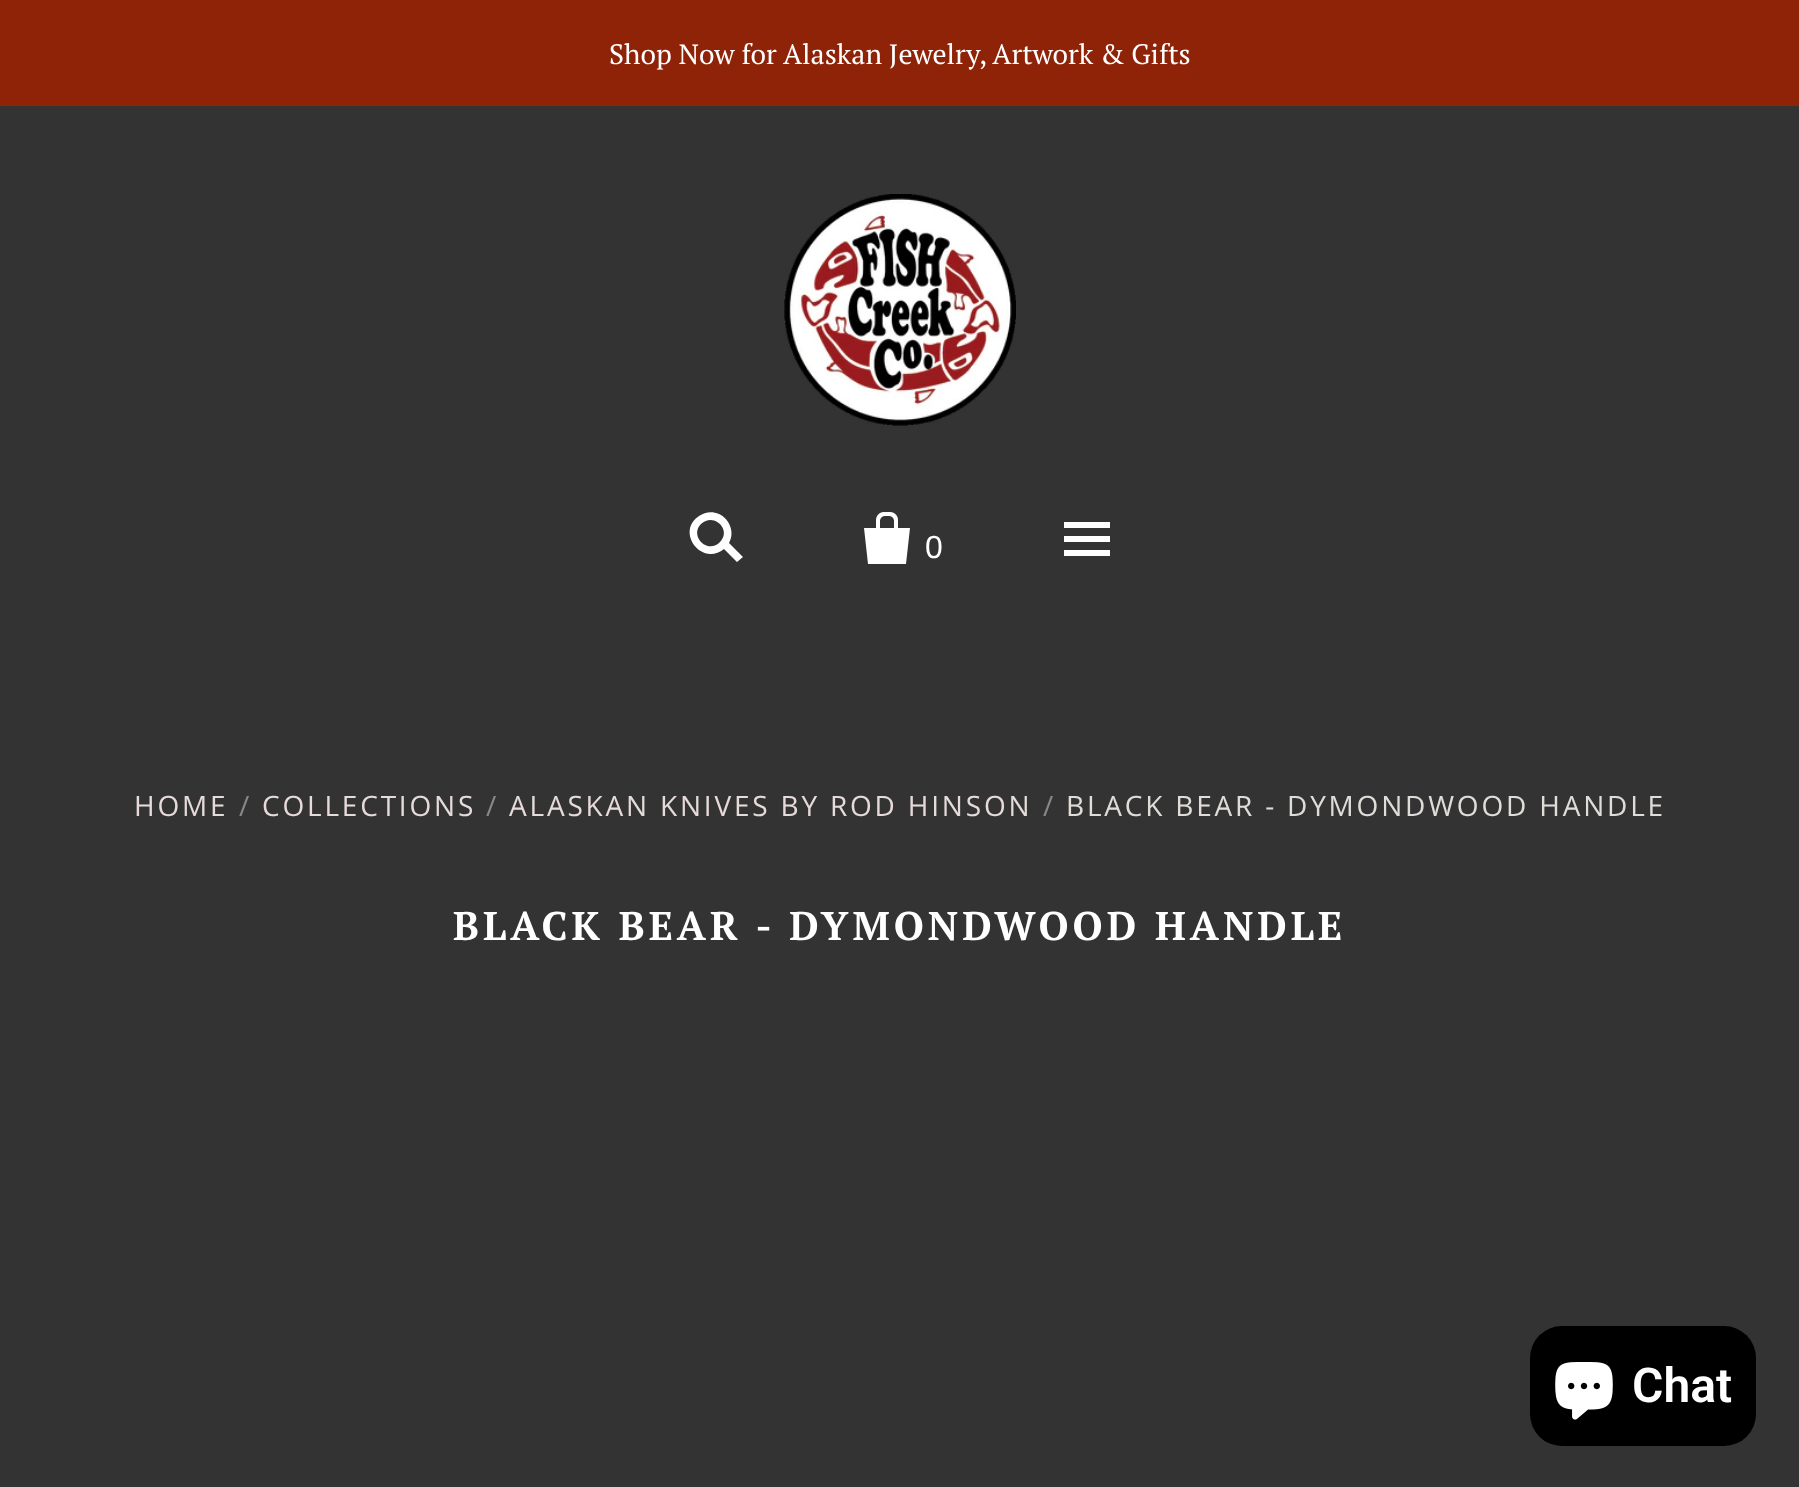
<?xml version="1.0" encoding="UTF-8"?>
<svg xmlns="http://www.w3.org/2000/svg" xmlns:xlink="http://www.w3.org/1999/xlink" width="1799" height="1487">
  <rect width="100%" height="100%" fill="#333333" />
  <rect width="1799" height="106" fill="#8e2308" />
  <image x="784" y="194" width="232" height="232" xlink:href="image1.png" />
  <path d="M 729 543 c 6 -10 1 -24 -10 -29 c -7 -3 -14 -2 -20 2 c -24 16 3 51 25 33 l 13 13 l 6 -5 z m -9 -1 c -12 13 -31 -6 -19 -18 c 13 -12 31 6 19 18 z" fill="#ffffff" />
  <image x="864" y="512" width="46" height="52" xlink:href="image2.png" />
  <rect x="1064" y="536" width="46" height="6" fill="#ffffff" />
  <rect x="1064" y="522" width="46" height="6" fill="#ffffff" />
  <rect x="1064" y="550" width="46" height="6" fill="#ffffff" />
  <rect x="1530" y="1326" width="226" height="120" rx="32" fill="#000000" />
  <image x="1555" y="1362" width="58" height="58" xlink:href="image3.png" />
  <text x="609" y="64" style="font-family: PT Serif; font-size: 28px; fill: #ffffff">Shop Now for Alaskan Jewelry, Artwork &amp; Gifts</text>
  <text x="925" y="558" style="font-family: Liberation Sans; font-size: 32px; fill: #ffffff">0</text>
  <text x="134" y="816" style="font-family: Open Sans; font-size: 28px; letter-spacing: 2.8px; fill: #e6dada">HOME</text>
  <text x="239" y="816" style="font-family: Open Sans; font-size: 28px; letter-spacing: 2.8px; fill: #898886">/</text>
  <text x="262" y="816" style="font-family: Open Sans; font-size: 28px; letter-spacing: 2.8px; fill: #e6dada">COLLECTIONS</text>
  <text x="486" y="816" style="font-family: Open Sans; font-size: 28px; letter-spacing: 2.8px; fill: #898886">/</text>
  <text x="509" y="816" style="font-family: Open Sans; font-size: 28px; letter-spacing: 2.8px; fill: #e6dada">ALASKAN KNIVES BY ROD HINSON</text>
  <text x="1043" y="816" style="font-family: Open Sans; font-size: 28px; letter-spacing: 2.8px; fill: #898886">/</text>
  <text x="1066" y="816" style="font-family: Open Sans; font-size: 28px; letter-spacing: 2.8px; fill: #e0ddd9">BLACK BEAR - DYMONDWOOD HANDLE</text>
  <text x="453" y="940" style="font-family: PT Serif; font-size: 40px; font-weight: bold; letter-spacing: 4px; fill: #ffffff">BLACK BEAR - DYMONDWOOD HANDLE</text>
  <text x="1632" y="1402" style="font-family: Roboto; font-size: 48px; font-weight: 600; fill: #ffffff">Chat</text>
</svg>
